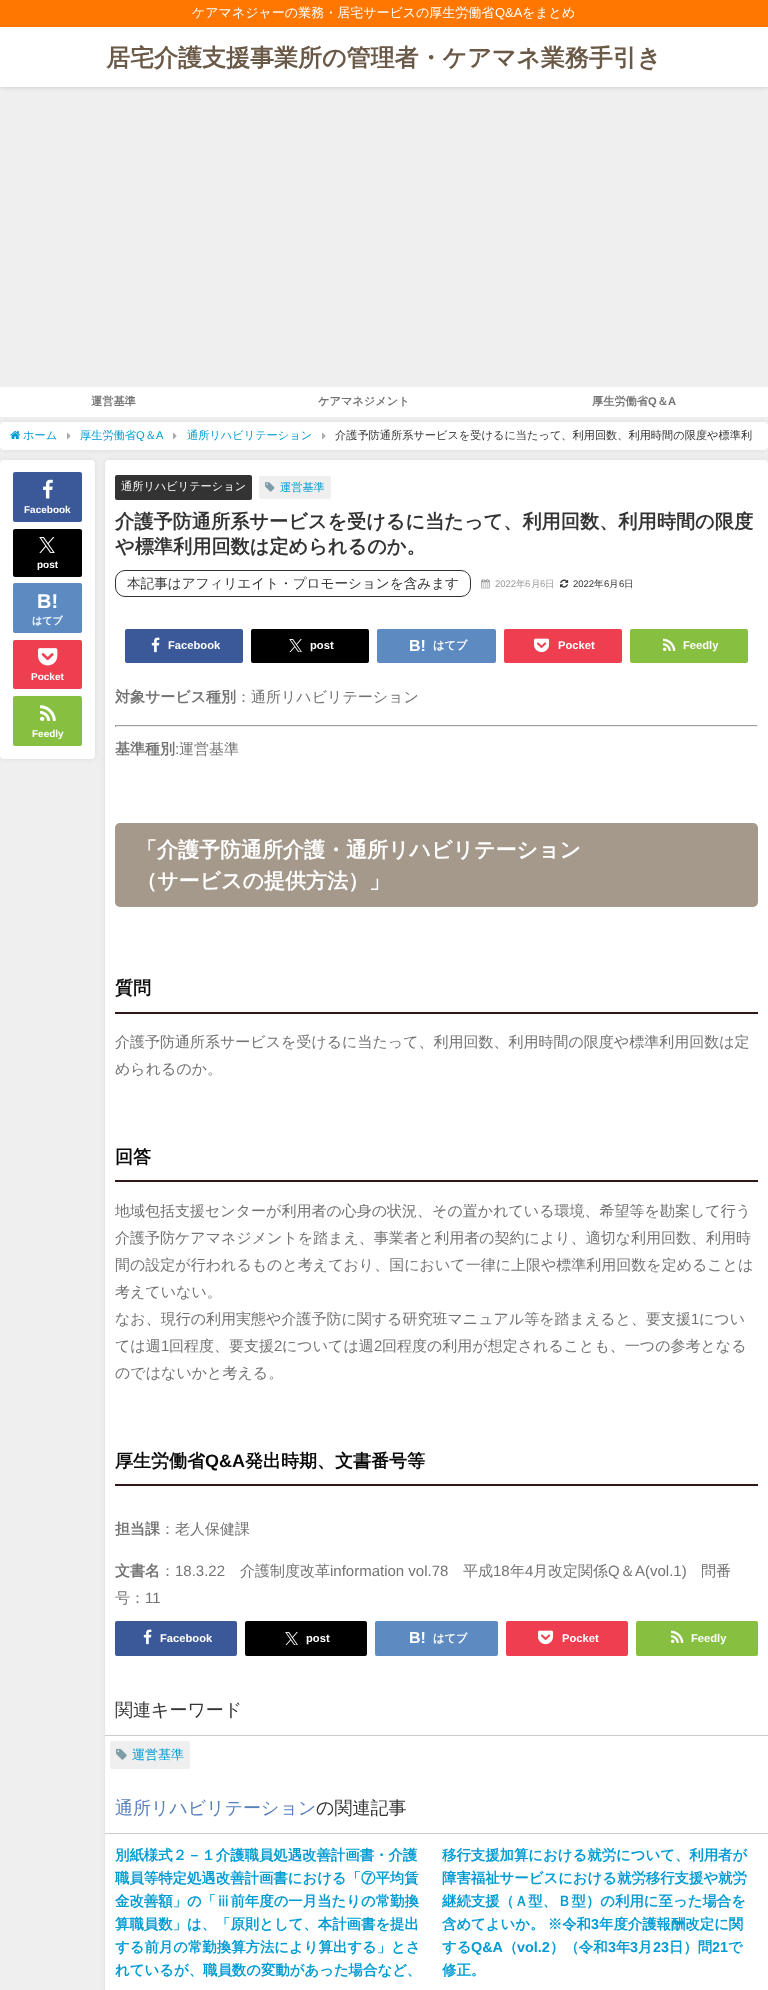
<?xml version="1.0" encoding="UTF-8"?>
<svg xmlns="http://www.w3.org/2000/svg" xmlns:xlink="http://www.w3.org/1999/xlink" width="768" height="1990">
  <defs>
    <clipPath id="clip1"><rect x="442" y="1844" width="306" height="138" /></clipPath>
  </defs>
  <rect width="100%" height="100%" fill="#efefef" />
  <rect width="768" height="87" fill="#000000" fill-opacity="0.2" filter="blur(2px)" />
  <rect y="27" width="768" height="60" fill="#ffffff" />
  <rect width="768" height="27" fill="#ff7700" />
  <rect y="422" width="768" height="28" rx="4" fill="#969696" fill-opacity="0.2" filter="blur(2.5px)" />
  <rect y="387" width="768" height="30" fill="#ffffff" />
  <rect y="422" width="768" height="28" rx="4" fill="#ffffff" />
  <image x="10" y="431" width="11" height="8" xlink:href="image1.png" />
  <image x="67" y="432" width="4" height="8" xlink:href="image2.png" />
  <image x="173" y="432" width="4" height="8" xlink:href="image2.png" />
  <image x="322" y="432" width="4" height="8" xlink:href="image2.png" />
  <rect y="460" width="95" height="299" rx="4" fill="#969696" fill-opacity="0.2" filter="blur(2.5px)" />
  <rect y="460" width="95" height="299" rx="4" fill="#ffffff" />
  <rect x="13" y="472" width="69" height="50" rx="2" fill="#3b5998" />
  <image x="43" y="479" width="10" height="20" xlink:href="image3.png" />
  <rect x="13" y="529" width="69" height="48" rx="2" fill="#000000" />
  <image x="39" y="537" width="16" height="16" xlink:href="image4.png" />
  <rect x="13" y="583" width="69" height="50" rx="2" fill="#5d8ac1" />
  <rect x="13" y="640" width="69" height="49" rx="2" fill="#f03e51" />
  <image x="38" y="648" width="20" height="18" xlink:href="image5.png" />
  <rect x="13" y="696" width="69" height="50" rx="2" fill="#87c040" />
  <image x="40" y="705" width="16" height="16" xlink:href="image6.png" />
  <rect x="105" y="460" width="663" height="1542" rx="4" fill="#969696" fill-opacity="0.2" filter="blur(2.5px)" />
  <rect x="105" y="460" width="663" height="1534" rx="4" fill="#ffffff" />
  <rect x="115" y="475" width="137" height="25" rx="2" fill="#333333" />
  <rect x="259" y="476" width="72" height="23" rx="2" fill="#efefef" />
  <image x="265" y="482" width="10" height="10" xlink:href="image7.png" />
  <rect x="115.5" y="570.5" width="355" height="26" rx="9.5" fill="none" stroke="#333333" />
  <image x="481" y="578" width="9" height="11" xlink:href="image8.png" />
  <image x="560" y="579" width="9" height="9" xlink:href="image9.png" />
  <rect x="125" y="629" width="118" height="34" rx="2" fill="#3b5998" />
  <image x="151" y="637" width="9" height="16" xlink:href="image10.png" />
  <rect x="251" y="629" width="118" height="34" rx="2" fill="#000000" />
  <image x="289" y="639" width="13" height="13" xlink:href="image11.png" />
  <rect x="377" y="629" width="119" height="34" rx="2" fill="#5d8ac1" />
  <rect x="504" y="629" width="118" height="34" rx="2" fill="#f03e51" />
  <image x="534" y="638" width="16" height="15" xlink:href="image12.png" />
  <rect x="630" y="629" width="118" height="34" rx="2" fill="#87c040" />
  <image x="663" y="638" width="13" height="13" xlink:href="image13.png" />
  <rect x="115" y="725" width="643" height="1" fill="#9f9f9f" />
  <rect x="757" y="725" width="1" height="2" fill="#eeeeee" />
  <rect x="115" y="726" width="643" height="1" fill="#eeeeee" />
  <rect x="115" y="725" width="1" height="2" fill="#9f9f9f" />
  <rect x="115" y="823" width="643" height="84" rx="5" fill="#a5998c" />
  <rect x="115" y="1012" width="643" height="2" fill="#331717" />
  <rect x="115" y="1180" width="643" height="2" fill="#331717" />
  <rect x="115" y="1484" width="643" height="2" fill="#331717" />
  <rect x="115" y="1621" width="122" height="35" rx="2" fill="#3b5998" />
  <image x="143" y="1629" width="9" height="16" xlink:href="image10.png" />
  <rect x="245" y="1621" width="122" height="35" rx="2" fill="#000000" />
  <image x="285" y="1632" width="13" height="13" xlink:href="image11.png" />
  <rect x="375" y="1621" width="123" height="35" rx="2" fill="#5d8ac1" />
  <rect x="506" y="1621" width="122" height="35" rx="2" fill="#f03e51" />
  <image x="538" y="1630" width="16" height="15" xlink:href="image12.png" />
  <rect x="636" y="1621" width="122" height="35" rx="2" fill="#87c040" />
  <image x="671" y="1630" width="13" height="13" xlink:href="image13.png" />
  <rect x="105" y="1735" width="663" height="1" fill="#cccccc" />
  <rect x="110" y="1741" width="80" height="28" rx="2" fill="#efefef" />
  <image x="116" y="1748" width="11" height="12" xlink:href="image14.png" />
  <rect x="105" y="1833" width="663" height="1" fill="#cccccc" />
  <text x="192" y="17" style="font-family: WenQuanYi Zen Hei; font-size: 13px; font-weight: 500; fill: #ffffff">ケアマネジャーの業務・居宅サービスの厚生労働省</text>
  <text x="495" y="17" style="font-family: Liberation Sans; font-size: 13px; fill: #ffffff">Q&amp;A</text>
  <text x="522" y="17" style="font-family: WenQuanYi Zen Hei; font-size: 13px; font-weight: 500; fill: #ffffff">をまとめ</text>
  <text x="106" y="66" style="font-family: WenQuanYi Zen Hei; font-size: 24px; font-weight: bold; fill: #6b5948">居宅介護支援事業所の管理者・ケアマネ業務手引き</text>
  <text x="91" y="405" style="font-family: WenQuanYi Zen Hei; font-size: 11.2px; font-weight: bold; fill: #737373">運営基準</text>
  <text x="318" y="405" style="font-family: WenQuanYi Zen Hei; font-size: 11.2px; font-weight: bold; fill: #737373">ケアマネジメント</text>
  <text x="592" y="405" style="font-family: WenQuanYi Zen Hei; font-size: 11.2px; font-weight: bold; fill: #737373">厚生労働省</text>
  <text x="648" y="405" style="font-family: Liberation Sans; font-size: 11.2px; font-weight: bold; fill: #737373">Q</text>
  <text x="657" y="405" style="font-family: WenQuanYi Zen Hei; font-size: 11.2px; font-weight: bold; fill: #737373">＆</text>
  <text x="668" y="405" style="font-family: Liberation Sans; font-size: 11.2px; font-weight: bold; fill: #737373">A</text>
  <text x="23" y="439" style="font-family: WenQuanYi Zen Hei; font-size: 11.2px; font-weight: 500; fill: #009bd3">ホーム</text>
  <text x="80" y="439" style="font-family: WenQuanYi Zen Hei; font-size: 11.2px; font-weight: 500; fill: #009bd3">厚生労働省</text>
  <text x="136" y="439" style="font-family: Liberation Sans; font-size: 11.2px; fill: #009bd3">Q</text>
  <text x="145" y="439" style="font-family: WenQuanYi Zen Hei; font-size: 11.2px; font-weight: 500; fill: #009bd3">＆</text>
  <text x="156" y="439" style="font-family: Liberation Sans; font-size: 11.2px; fill: #009bd3">A</text>
  <text x="187" y="439" style="font-family: WenQuanYi Zen Hei; font-size: 11.2px; font-weight: 500; fill: #009bd3">通所リハビリテーション</text>
  <text x="335" y="439" style="font-family: WenQuanYi Zen Hei; font-size: 11.2px; font-weight: 500; fill: #333333">介護予防通所系サービスを受けるに当たって、利用回数、利用時間の限度や標準利</text>
  <text x="24" y="513" style="font-family: Liberation Sans; font-size: 10px; font-weight: bold; fill: #ffffff">Facebook</text>
  <text x="37" y="568" style="font-family: Liberation Sans; font-size: 10px; font-weight: bold; fill: #ffffff">post</text>
  <text x="37" y="608" style="font-family: Liberation Sans; font-size: 20px; font-weight: bold; fill: #ffffff">B!</text>
  <text x="32" y="624" style="font-family: WenQuanYi Zen Hei; font-size: 10px; font-weight: bold; fill: #ffffff">はてブ</text>
  <text x="31" y="680" style="font-family: Liberation Sans; font-size: 10px; font-weight: bold; fill: #ffffff">Pocket</text>
  <text x="32" y="737" style="font-family: Liberation Sans; font-size: 10px; font-weight: bold; fill: #ffffff">Feedly</text>
  <text x="121" y="490" style="font-family: WenQuanYi Zen Hei; font-size: 11.2px; font-weight: 500; fill: #ffffff">通所リハビリテーション</text>
  <text x="280" y="491" style="font-family: WenQuanYi Zen Hei; font-size: 11.2px; font-weight: 500; fill: #009bd3">運営基準</text>
  <text x="115" y="528" style="font-family: WenQuanYi Zen Hei; font-size: 19.2px; font-weight: bold; fill: #333333">介護予防通所系サービスを受けるに当たって、利用回数、利用時間の限度</text>
  <text x="115" y="553" style="font-family: WenQuanYi Zen Hei; font-size: 19.2px; font-weight: bold; fill: #333333">や標準利用回数は定められるのか。</text>
  <text x="127" y="588" style="font-family: WenQuanYi Zen Hei; font-size: 13.6px; font-weight: 500; fill: #333333">本記事はアフィリエイト・プロモーションを含みます</text>
  <text x="495" y="587" style="font-family: Liberation Sans; font-size: 9.5px; fill: #999999">2022</text>
  <text x="516" y="587" style="font-family: WenQuanYi Zen Hei; font-size: 9.5px; font-weight: 500; fill: #999999">年</text>
  <text x="525" y="587" style="font-family: Liberation Sans; font-size: 9.5px; fill: #999999">6</text>
  <text x="531" y="587" style="font-family: WenQuanYi Zen Hei; font-size: 9.5px; font-weight: 500; fill: #999999">月</text>
  <text x="540" y="587" style="font-family: Liberation Sans; font-size: 9.5px; fill: #999999">6</text>
  <text x="545" y="587" style="font-family: WenQuanYi Zen Hei; font-size: 9.5px; font-weight: 500; fill: #999999">日</text>
  <text x="573" y="587" style="font-family: Liberation Sans; font-size: 9.5px; fill: #333333">2022</text>
  <text x="594" y="587" style="font-family: WenQuanYi Zen Hei; font-size: 9.5px; font-weight: 500; fill: #333333">年</text>
  <text x="604" y="587" style="font-family: Liberation Sans; font-size: 9.5px; fill: #333333">6</text>
  <text x="609" y="587" style="font-family: WenQuanYi Zen Hei; font-size: 9.5px; font-weight: 500; fill: #333333">月</text>
  <text x="619" y="587" style="font-family: Liberation Sans; font-size: 9.5px; fill: #333333">6</text>
  <text x="624" y="587" style="font-family: WenQuanYi Zen Hei; font-size: 9.5px; font-weight: 500; fill: #333333">日</text>
  <text x="168" y="649" style="font-family: Liberation Sans; font-size: 11.2px; font-weight: bold; fill: #ffffff">Facebook</text>
  <text x="310" y="649" style="font-family: Liberation Sans; font-size: 11.2px; font-weight: bold; fill: #ffffff">post</text>
  <text x="409" y="651" style="font-family: Liberation Sans; font-size: 16px; font-weight: bold; fill: #ffffff">B!</text>
  <text x="433" y="649" style="font-family: WenQuanYi Zen Hei; font-size: 11.2px; font-weight: bold; fill: #ffffff">はてブ</text>
  <text x="558" y="649" style="font-family: Liberation Sans; font-size: 11.2px; font-weight: bold; fill: #ffffff">Pocket</text>
  <text x="683" y="649" style="font-family: Liberation Sans; font-size: 11.2px; font-weight: bold; fill: #ffffff">Feedly</text>
  <text x="115" y="702" style="font-family: WenQuanYi Zen Hei; font-size: 15px; font-weight: bold; fill: #737373">対象サービス種別</text>
  <text x="236" y="702" style="font-family: WenQuanYi Zen Hei; font-size: 15px; font-weight: 500; fill: #737373">：通所リハビリテーション</text>
  <text x="115" y="754" style="font-family: WenQuanYi Zen Hei; font-size: 15px; font-weight: bold; fill: #737373">基準種別</text>
  <text x="175" y="754" style="font-family: Liberation Sans; font-size: 15px; fill: #737373">:</text>
  <text x="179" y="754" style="font-family: WenQuanYi Zen Hei; font-size: 15px; font-weight: 500; fill: #737373">運営基準</text>
  <text x="136" y="857" style="font-family: WenQuanYi Zen Hei; font-size: 21px; font-weight: bold; fill: #ffffff">「介護予防通所介護・通所リハビリテーション</text>
  <text x="136" y="888" style="font-family: WenQuanYi Zen Hei; font-size: 21px; font-weight: bold; fill: #ffffff">（サービスの提供方法）」</text>
  <text x="115" y="994" style="font-family: WenQuanYi Zen Hei; font-size: 18px; font-weight: bold; fill: #0a0a0a">質問</text>
  <text x="115" y="1047" style="font-family: WenQuanYi Zen Hei; font-size: 15px; font-weight: 500; fill: #737373">介護予防通所系サービスを受けるに当たって、利用回数、利用時間の限度や標準利用回数は定</text>
  <text x="115" y="1074" style="font-family: WenQuanYi Zen Hei; font-size: 15px; font-weight: 500; fill: #737373">められるのか。</text>
  <text x="115" y="1163" style="font-family: WenQuanYi Zen Hei; font-size: 18px; font-weight: bold; fill: #0a0a0a">回答</text>
  <text x="115" y="1216" style="font-family: WenQuanYi Zen Hei; font-size: 15px; font-weight: 500; fill: #737373">地域包括支援センターが利用者の心身の状況、その置かれている環境、希望等を勘案して行う</text>
  <text x="115" y="1243" style="font-family: WenQuanYi Zen Hei; font-size: 15px; font-weight: 500; fill: #737373">介護予防ケアマネジメントを踏まえ、事業者と利用者の契約により、適切な利用回数、利用時</text>
  <text x="115" y="1270" style="font-family: WenQuanYi Zen Hei; font-size: 15px; font-weight: 500; fill: #737373">間の設定が行われるものと考えており、国において一律に上限や標準利用回数を定めることは</text>
  <text x="115" y="1297" style="font-family: WenQuanYi Zen Hei; font-size: 15px; font-weight: 500; fill: #737373">考えていない。</text>
  <text x="115" y="1324" style="font-family: WenQuanYi Zen Hei; font-size: 15px; font-weight: 500; fill: #737373">なお、現行の利用実態や介護予防に関する研究班マニュアル等を踏まえると、要支援</text>
  <text x="691" y="1324" style="font-family: Liberation Sans; font-size: 15px; fill: #737373">1</text>
  <text x="699" y="1324" style="font-family: WenQuanYi Zen Hei; font-size: 15px; font-weight: 500; fill: #737373">につい</text>
  <text x="115" y="1351" style="font-family: WenQuanYi Zen Hei; font-size: 15px; font-weight: 500; fill: #737373">ては週</text>
  <text x="161" y="1351" style="font-family: Liberation Sans; font-size: 15px; fill: #737373">1</text>
  <text x="169" y="1351" style="font-family: WenQuanYi Zen Hei; font-size: 15px; font-weight: 500; fill: #737373">回程度、要支援</text>
  <text x="274" y="1351" style="font-family: Liberation Sans; font-size: 15px; fill: #737373">2</text>
  <text x="282" y="1351" style="font-family: WenQuanYi Zen Hei; font-size: 15px; font-weight: 500; fill: #737373">については週</text>
  <text x="374" y="1351" style="font-family: Liberation Sans; font-size: 15px; fill: #737373">2</text>
  <text x="382" y="1351" style="font-family: WenQuanYi Zen Hei; font-size: 15px; font-weight: 500; fill: #737373">回程度の利用が想定されることも、一つの参考となる</text>
  <text x="115" y="1378" style="font-family: WenQuanYi Zen Hei; font-size: 15px; font-weight: 500; fill: #737373">のではないかと考える。</text>
  <text x="115" y="1467" style="font-family: WenQuanYi Zen Hei; font-size: 18px; font-weight: bold; fill: #0a0a0a">厚生労働省</text>
  <text x="205" y="1467" style="font-family: Liberation Sans; font-size: 18px; font-weight: bold; fill: #0a0a0a">Q&amp;A</text>
  <text x="245" y="1467" style="font-family: WenQuanYi Zen Hei; font-size: 18px; font-weight: bold; fill: #0a0a0a">発出時期、文書番号等</text>
  <text x="115" y="1534" style="font-family: WenQuanYi Zen Hei; font-size: 15px; font-weight: bold; fill: #737373">担当課</text>
  <text x="160" y="1534" style="font-family: WenQuanYi Zen Hei; font-size: 15px; font-weight: 500; fill: #737373">：老人保健課</text>
  <text x="115" y="1576" style="font-family: WenQuanYi Zen Hei; font-size: 15px; font-weight: bold; fill: #737373">文書名</text>
  <text x="160" y="1576" style="font-family: WenQuanYi Zen Hei; font-size: 15px; font-weight: 500; fill: #737373">：</text>
  <text x="175" y="1576" style="font-family: Liberation Sans; font-size: 15px; fill: #737373">18.3.22</text>
  <text x="240" y="1576" style="font-family: WenQuanYi Zen Hei; font-size: 15px; font-weight: 500; fill: #737373">介護制度改革</text>
  <text x="330" y="1576" style="font-family: Liberation Sans; font-size: 15px; fill: #737373">information vol.78</text>
  <text x="463" y="1576" style="font-family: WenQuanYi Zen Hei; font-size: 15px; font-weight: 500; fill: #737373">平成</text>
  <text x="493" y="1576" style="font-family: Liberation Sans; font-size: 15px; fill: #737373">18</text>
  <text x="510" y="1576" style="font-family: WenQuanYi Zen Hei; font-size: 15px; font-weight: 500; fill: #737373">年</text>
  <text x="525" y="1576" style="font-family: Liberation Sans; font-size: 15px; fill: #737373">4</text>
  <text x="533" y="1576" style="font-family: WenQuanYi Zen Hei; font-size: 15px; font-weight: 500; fill: #737373">月改定関係</text>
  <text x="608" y="1576" style="font-family: Liberation Sans; font-size: 15px; fill: #737373">Q</text>
  <text x="620" y="1576" style="font-family: WenQuanYi Zen Hei; font-size: 15px; font-weight: 500; fill: #737373">＆</text>
  <text x="635" y="1576" style="font-family: Liberation Sans; font-size: 15px; fill: #737373">A(vol.1)</text>
  <text x="701" y="1576" style="font-family: WenQuanYi Zen Hei; font-size: 15px; font-weight: 500; fill: #737373">問番</text>
  <text x="115" y="1603" style="font-family: WenQuanYi Zen Hei; font-size: 15px; font-weight: 500; fill: #737373">号：</text>
  <text x="145" y="1603" style="font-family: Liberation Sans; font-size: 15px; fill: #737373">11</text>
  <text x="160" y="1642" style="font-family: Liberation Sans; font-size: 11.2px; font-weight: bold; fill: #ffffff">Facebook</text>
  <text x="306" y="1642" style="font-family: Liberation Sans; font-size: 11.2px; font-weight: bold; fill: #ffffff">post</text>
  <text x="409" y="1643" style="font-family: Liberation Sans; font-size: 16px; font-weight: bold; fill: #ffffff">B!</text>
  <text x="433" y="1642" style="font-family: WenQuanYi Zen Hei; font-size: 11.2px; font-weight: bold; fill: #ffffff">はてブ</text>
  <text x="562" y="1642" style="font-family: Liberation Sans; font-size: 11.2px; font-weight: bold; fill: #ffffff">Pocket</text>
  <text x="691" y="1642" style="font-family: Liberation Sans; font-size: 11.2px; font-weight: bold; fill: #ffffff">Feedly</text>
  <text x="115" y="1716" style="font-family: WenQuanYi Zen Hei; font-size: 18px; font-weight: 500; fill: #333333">関連キーワード</text>
  <text x="132" y="1759" style="font-family: WenQuanYi Zen Hei; font-size: 13px; font-weight: 500; fill: #009bd3">運営基準</text>
  <text x="115" y="1814" style="font-family: WenQuanYi Zen Hei; font-size: 18px; font-weight: 500; fill: #577fbc">通所リハビリテーション</text>
  <text x="316" y="1814" style="font-family: WenQuanYi Zen Hei; font-size: 18px; font-weight: 500; fill: #333333">の関連記事</text>
  <text x="115" y="1860" style="font-family: WenQuanYi Zen Hei; font-size: 14.4px; font-weight: bold; fill: #009bd3">別紙様式２－１介護職員処遇改善計画書・介護</text>
  <text x="115" y="1883" style="font-family: WenQuanYi Zen Hei; font-size: 14.4px; font-weight: bold; fill: #009bd3">職員等特定処遇改善計画書における「⑦平均賃</text>
  <text x="115" y="1906" style="font-family: WenQuanYi Zen Hei; font-size: 14.4px; font-weight: bold; fill: #009bd3">金改善額」の「ⅲ前年度の一月当たりの常勤換</text>
  <text x="115" y="1929" style="font-family: WenQuanYi Zen Hei; font-size: 14.4px; font-weight: bold; fill: #009bd3">算職員数」は、「原則として、本計画書を提出</text>
  <text x="115" y="1952" style="font-family: WenQuanYi Zen Hei; font-size: 14.4px; font-weight: bold; fill: #009bd3">する前月の常勤換算方法により算出する」とさ</text>
  <text x="115" y="1975" style="font-family: WenQuanYi Zen Hei; font-size: 14.4px; font-weight: bold; fill: #009bd3">れているが、職員数の変動があった場合など、</text>
  <g clip-path="url(#clip1)">
    <text x="442" y="1860" style="font-family: WenQuanYi Zen Hei; font-size: 14.4px; font-weight: bold; fill: #009bd3">移行支援加算における就労について、利用者が</text>
  </g>
  <text x="442" y="1883" style="font-family: WenQuanYi Zen Hei; font-size: 14.4px; font-weight: bold; fill: #009bd3">障害福祉サービスにおける就労移行支援や就労</text>
  <g clip-path="url(#clip1)">
    <text x="442" y="1906" style="font-family: WenQuanYi Zen Hei; font-size: 14.4px; font-weight: bold; fill: #009bd3">継続支援（Ａ型、Ｂ型）の利用に至った場合を</text>
  </g>
  <text x="442" y="1929" word-spacing="-1" style="font-family: WenQuanYi Zen Hei; font-size: 14.4px; font-weight: bold; fill: #009bd3">含めてよいか。 ※令和</text>
  <text x="591" y="1929" style="font-family: Liberation Sans; font-size: 14.4px; font-weight: bold; fill: #009bd3">3</text>
  <text x="599" y="1929" style="font-family: WenQuanYi Zen Hei; font-size: 14.4px; font-weight: bold; fill: #009bd3">年度介護報酬改定に関</text>
  <text x="442" y="1952" style="font-family: WenQuanYi Zen Hei; font-size: 14.4px; font-weight: bold; fill: #009bd3">する</text>
  <text x="471" y="1952" style="font-family: Liberation Sans; font-size: 14.4px; font-weight: bold; fill: #009bd3">Q&amp;A</text>
  <text x="503" y="1952" style="font-family: WenQuanYi Zen Hei; font-size: 14.4px; font-weight: bold; fill: #009bd3">（</text>
  <text x="517" y="1952" style="font-family: Liberation Sans; font-size: 14.4px; font-weight: bold; fill: #009bd3">vol.2</text>
  <text x="550" y="1952" style="font-family: WenQuanYi Zen Hei; font-size: 14.4px; font-weight: bold; fill: #009bd3">）（令和</text>
  <text x="608" y="1952" style="font-family: Liberation Sans; font-size: 14.4px; font-weight: bold; fill: #009bd3">3</text>
  <text x="616" y="1952" style="font-family: WenQuanYi Zen Hei; font-size: 14.4px; font-weight: bold; fill: #009bd3">年</text>
  <text x="630" y="1952" style="font-family: Liberation Sans; font-size: 14.4px; font-weight: bold; fill: #009bd3">3</text>
  <text x="638" y="1952" style="font-family: WenQuanYi Zen Hei; font-size: 14.4px; font-weight: bold; fill: #009bd3">月</text>
  <text x="653" y="1952" style="font-family: Liberation Sans; font-size: 14.4px; font-weight: bold; fill: #009bd3">23</text>
  <text x="669" y="1952" style="font-family: WenQuanYi Zen Hei; font-size: 14.4px; font-weight: bold; fill: #009bd3">日）問</text>
  <text x="712" y="1952" style="font-family: Liberation Sans; font-size: 14.4px; font-weight: bold; fill: #009bd3">21</text>
  <text x="728" y="1952" style="font-family: WenQuanYi Zen Hei; font-size: 14.4px; font-weight: bold; fill: #009bd3">で</text>
  <text x="442" y="1975" style="font-family: WenQuanYi Zen Hei; font-size: 14.4px; font-weight: bold; fill: #009bd3">修正。</text>
</svg>
